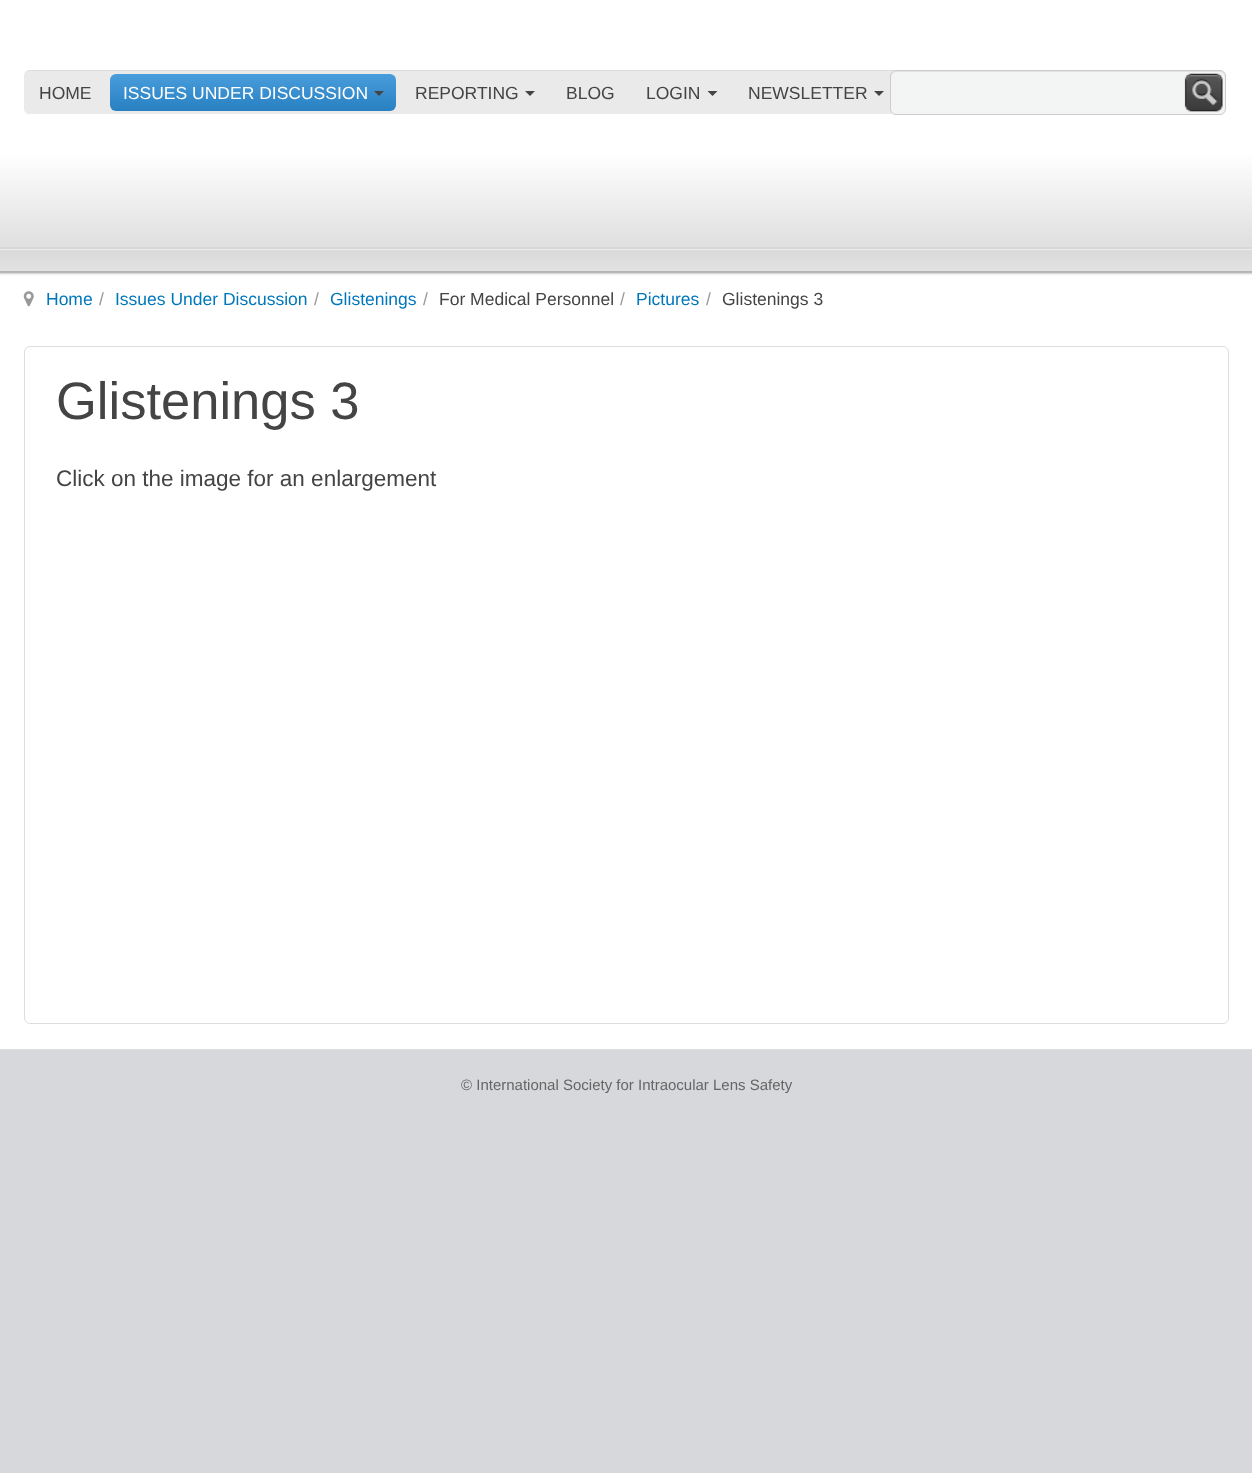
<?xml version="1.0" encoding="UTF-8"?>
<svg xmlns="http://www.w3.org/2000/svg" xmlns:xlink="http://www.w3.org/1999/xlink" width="1252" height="1473">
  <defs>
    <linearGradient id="g1" gradientUnits="userSpaceOnUse" x1="253" y1="74" x2="253" y2="111"><stop offset="0" stop-color="#499ddc" /><stop offset="1" stop-color="#2880c1" /></linearGradient>
  </defs>
  <rect width="100%" height="100%" fill="#d6d8db" />
  <rect y="276" width="1252" height="773" fill="#ffffff" />
  <image x="0" y="0" width="1252" height="276" xlink:href="image1.png" />
  <rect x="24" y="70" width="875" height="45" rx="6" fill="#eaeaea" />
  <path d="M 30 70 h 862 c 2 0 7 2 7 5 c -1 -3 -4 -4 -7 -4 h -862 c -3 0 -6 2 -6 5 c 0 -3 3 -6 6 -6 z" fill="#dddddd" />
  <path d="M 30 115 h 862 c 2 0 7 -2 7 -5 c -1 3 -4 4 -7 4 h -862 c -3 0 -6 -2 -6 -5 c 0 3 3 6 6 6 z" fill="#ffffff" />
  <rect x="110" y="74" width="286" height="37" rx="6" fill="url(#g1)" />
  <path d="M 374 91 h 10 l -5 5 z" fill="#444444" />
  <path d="M 525 91 h 10 l -5 5 z" fill="#444444" />
  <path d="M 707.5 91 h 10 l -5 5 z" fill="#444444" />
  <path d="M 874 91 h 10 l -5 5 z" fill="#444444" />
  <rect x="890" y="70" width="336" height="45" rx="6" fill="#f3f4f4" />
  <path d="M 896 72 h 324 c 3 0 5 3 5 6 v -2 c 0 -3 -2 -5 -5 -5 h -324 c -3 0 -5 2 -5 5 v 2 c 0 -3 2 -6 5 -6 z" fill="#e1e2e2" />
  <rect x="890.5" y="70.5" width="335" height="44" rx="5.5" fill="none" stroke="#cccccc" />
  <image x="1184" y="73" width="39" height="40" xlink:href="image2.png" />
  <image x="23" y="291" width="11" height="16" xlink:href="image3.png" />
  <rect x="24.5" y="346.5" width="1204" height="677" rx="5.5" fill="none" stroke="#dddddd" />
  <rect y="1049" width="1252" height="1" fill="#dddddd" />
  <text x="39" y="99" style="font-family: Liberation Sans; font-size: 17.5px; fill: #444444">HOME</text>
  <text x="123" y="99" style="font-family: Liberation Sans; font-size: 17.5px; fill: #ffffff">ISSUES UNDER DISCUSSION</text>
  <text x="415" y="99" style="font-family: Liberation Sans; font-size: 17.5px; fill: #444444">REPORTING</text>
  <text x="566" y="99" style="font-family: Liberation Sans; font-size: 17.5px; fill: #444444">BLOG</text>
  <text x="646" y="99" style="font-family: Liberation Sans; font-size: 17.5px; fill: #444444">LOGIN</text>
  <text x="748" y="99" style="font-family: Liberation Sans; font-size: 17.5px; fill: #444444">NEWSLETTER</text>
  <text x="46" y="305" style="font-family: Liberation Sans; font-size: 17.5px; fill: #0077bb">Home</text>
  <text x="99" y="305" style="font-family: Liberation Sans; font-size: 17.5px; fill: #999999">/</text>
  <text x="115" y="305" style="font-family: Liberation Sans; font-size: 17.5px; fill: #0077bb">Issues Under Discussion</text>
  <text x="314" y="305" style="font-family: Liberation Sans; font-size: 17.5px; fill: #999999">/</text>
  <text x="330" y="305" style="font-family: Liberation Sans; font-size: 17.5px; fill: #0077bb">Glistenings</text>
  <text x="423" y="305" style="font-family: Liberation Sans; font-size: 17.5px; fill: #999999">/</text>
  <text x="439" y="305" style="font-family: Liberation Sans; font-size: 17.5px; fill: #444444">For Medical Personnel</text>
  <text x="620" y="305" style="font-family: Liberation Sans; font-size: 17.5px; fill: #999999">/</text>
  <text x="636" y="305" style="font-family: Liberation Sans; font-size: 17.5px; fill: #0077bb">Pictures</text>
  <text x="706" y="305" style="font-family: Liberation Sans; font-size: 17.5px; fill: #999999">/</text>
  <text x="722" y="305" style="font-family: Liberation Sans; font-size: 17.5px; fill: #444444">Glistenings 3</text>
  <text x="56" y="419" style="font-family: Liberation Sans; font-size: 52.5px; fill: #444444">Glistenings 3</text>
  <text x="56" y="486" style="font-family: Liberation Sans; font-size: 22.5px; fill: #444444">Click on the image for an enlargement</text>
  <text x="461" y="1090" style="font-family: Liberation Sans; font-size: 15px; fill: #666666">© International Society for Intraocular Lens Safety</text>
</svg>
